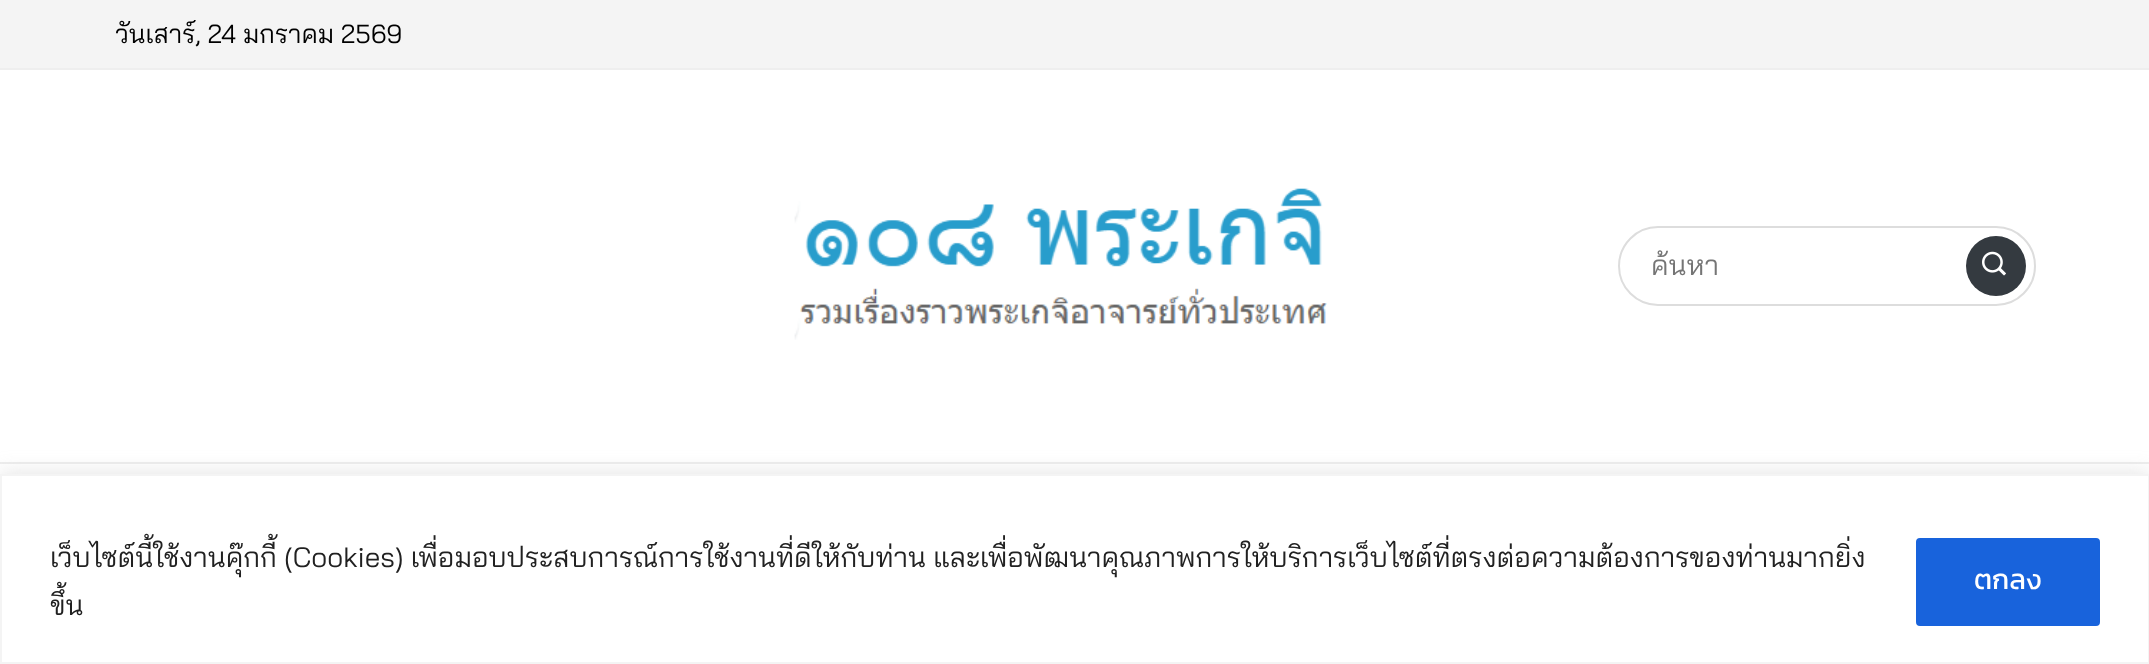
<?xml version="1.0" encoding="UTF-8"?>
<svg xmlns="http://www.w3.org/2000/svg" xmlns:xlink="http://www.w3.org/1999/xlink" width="2149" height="664">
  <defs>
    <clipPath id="clip1"><rect x="1652" y="248" width="292" height="36" /></clipPath>
  </defs>
  <rect width="100%" height="100%" fill="#ffffff" />
  <rect width="2149" height="68" fill="#f4f4f4" />
  <rect y="68" width="2149" height="2" fill="#eeeeee" />
  <image x="794" y="188" width="533" height="152" xlink:href="image1.png" />
  <rect x="1619" y="227" width="416" height="78" rx="39" fill="none" stroke="#dddddd" stroke-width="2" />
  <circle cx="1996" cy="266" r="30" fill="#343a40" />
  <image x="1982" y="251" width="24" height="25" xlink:href="image2.png" />
  <rect y="462" width="2149" height="2" fill="#eeeeee" />
  <rect y="472" width="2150" height="190" fill="#acabab" fill-opacity="0.3" filter="blur(10px)" />
  <rect x="1" y="475" width="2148" height="188" fill="#ffffff" stroke="#f4f4f4" stroke-width="2" />
  <rect x="1918" y="540" width="180" height="84" rx="2" fill="#1863dc" stroke="#1863dc" stroke-width="4" />
  <text x="115" y="43" style="font-family: Bai Jamjuree; font-size: 26px; fill: #000000">วันเสาร์, 24 มกราคม 2569</text>
  <g clip-path="url(#clip1)">
    <text x="1651" y="275" style="font-family: Bai Jamjuree; font-size: 28px; fill: #757575">ค้นหา</text>
  </g>
  <text x="50" y="567" style="font-family: Bai Jamjuree; font-size: 28px; fill: #212121">เว็บไซต์นี้ใช้งานคุ๊กกี้ (Cookies) เพื่อมอบประสบการณ์การใช้งานที่ดีให้กับท่าน และเพื่อพัฒนาคุณภาพการให้บริการเว็บไซต์ที่ตรงต่อความต้องการของท่านมากยิ่ง</text>
  <text x="50" y="615" style="font-family: Bai Jamjuree; font-size: 28px; fill: #212121">ขึ้น</text>
  <text x="1974" y="589" style="font-family: Kanit; font-size: 28px; fill: #ffffff">ตกลง</text>
</svg>
